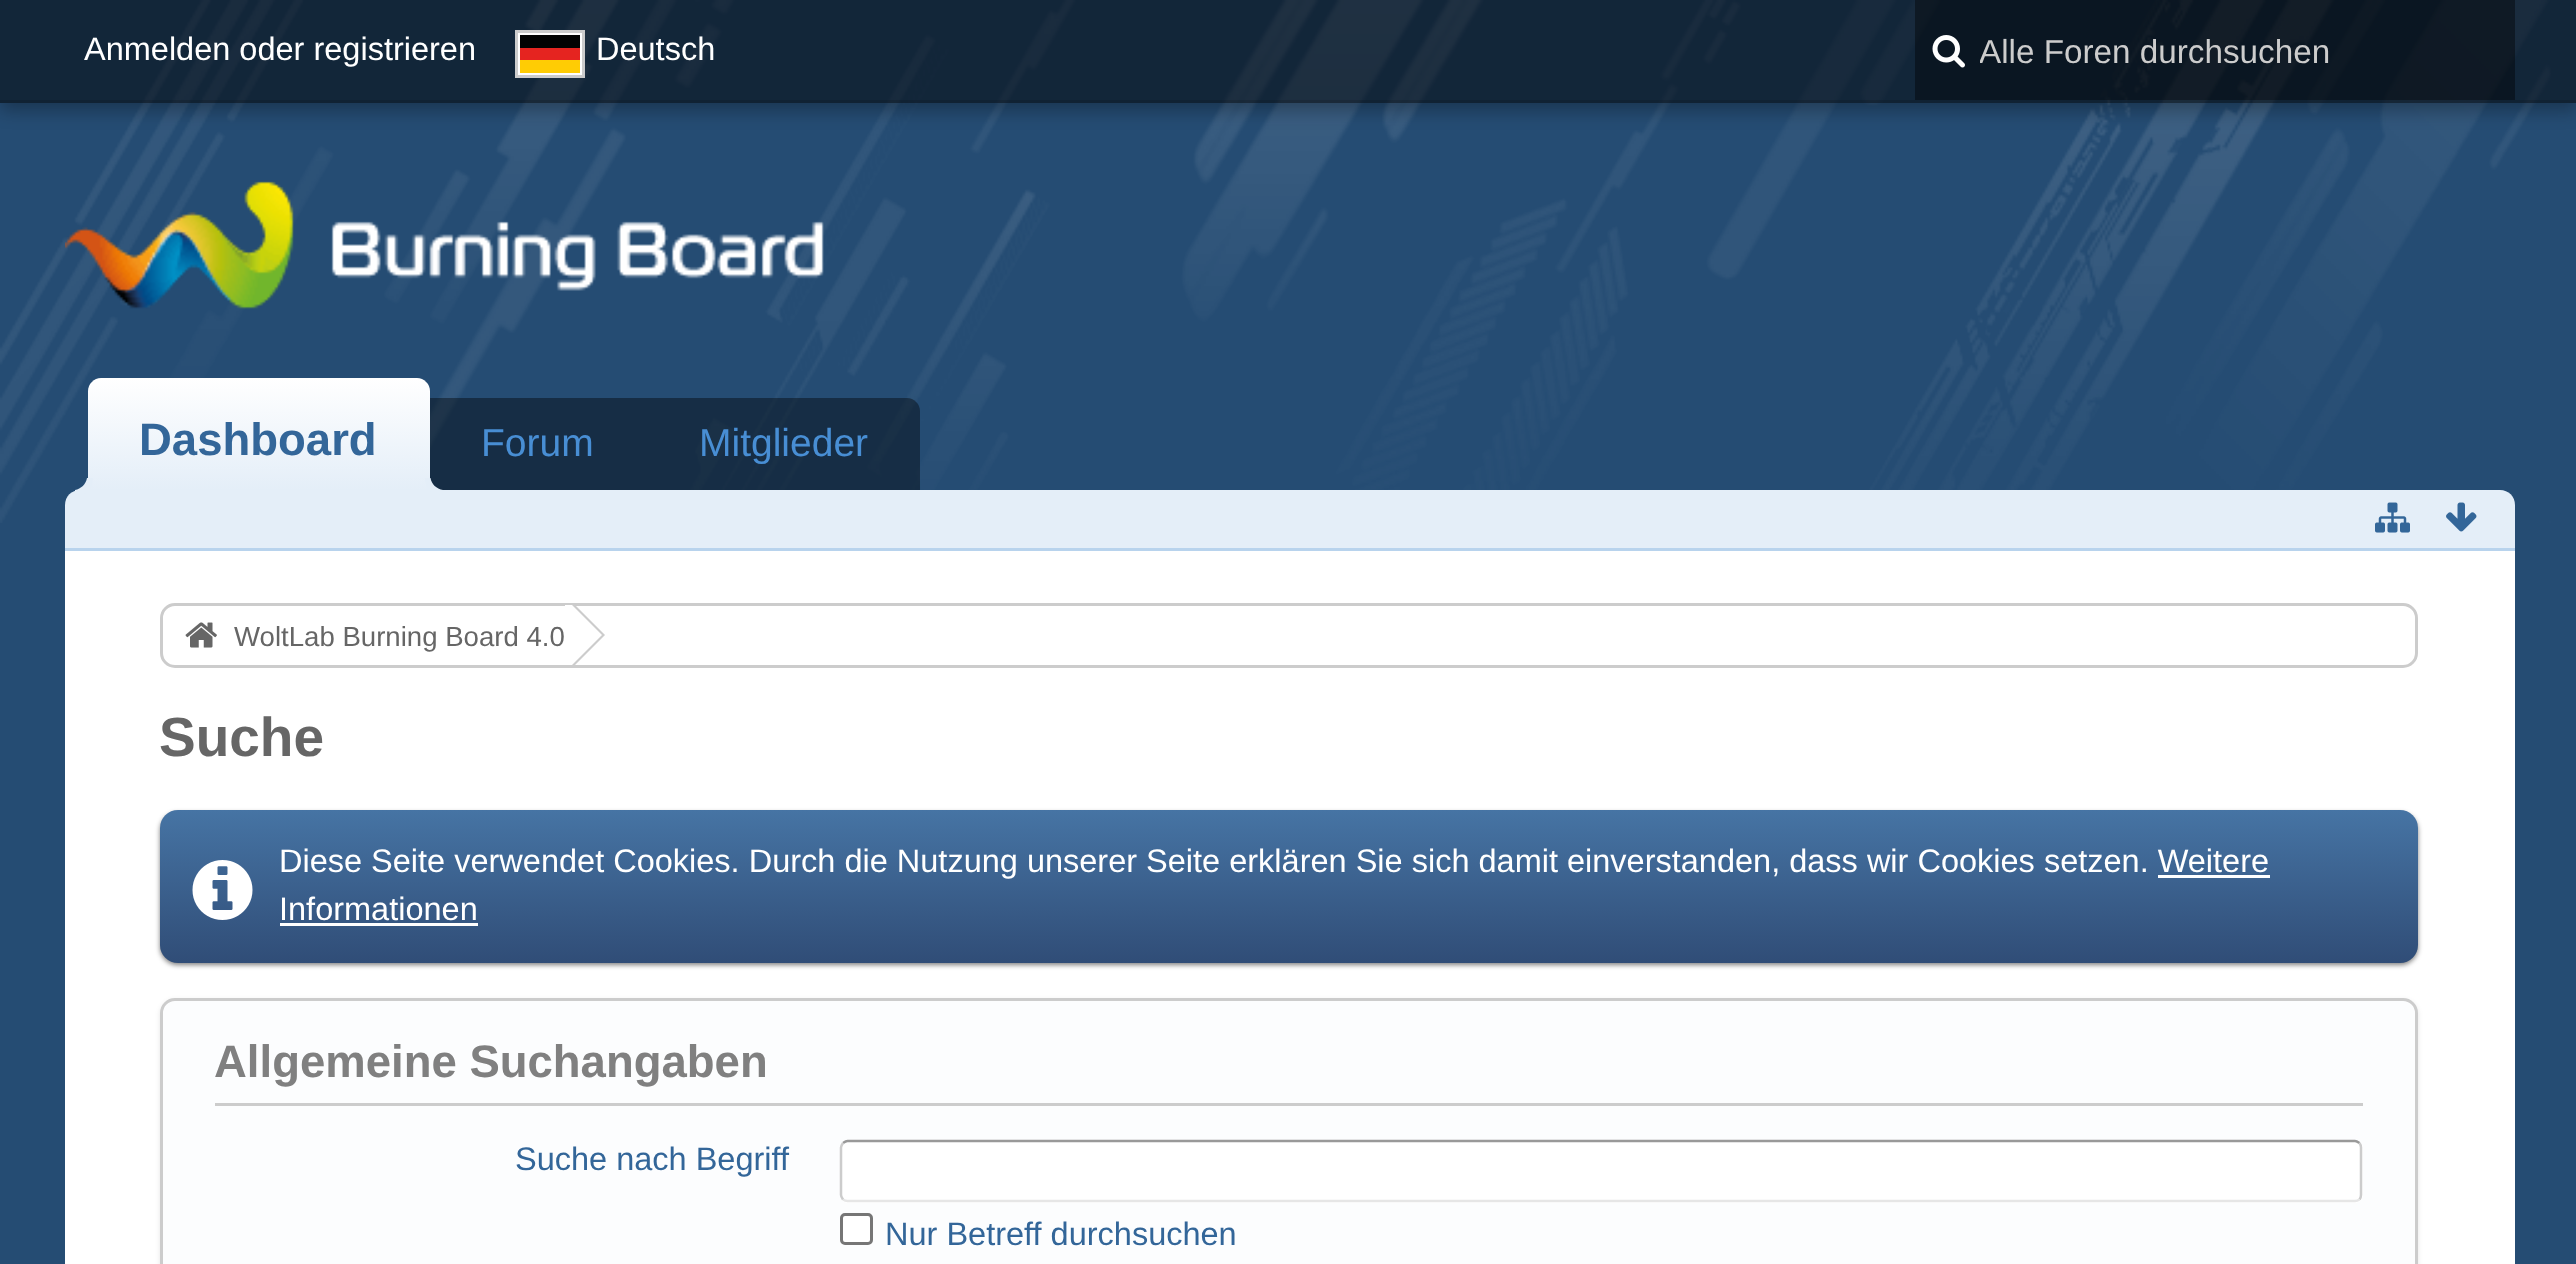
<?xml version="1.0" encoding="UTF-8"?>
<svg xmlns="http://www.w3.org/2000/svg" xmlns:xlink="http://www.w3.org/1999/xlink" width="2576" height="1264">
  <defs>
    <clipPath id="clip1"><path d="M 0 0 h 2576 v 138 h -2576 z m 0 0 h 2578 v 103 h -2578 z" clip-rule="evenodd" /></clipPath>
    <linearGradient id="g1" gradientUnits="userSpaceOnUse" x1="259" y1="378" x2="259" y2="490"><stop offset="0" stop-color="#ffffff" /><stop offset="1" stop-color="#e4eef8" /></linearGradient>
    <linearGradient id="g2" gradientUnits="userSpaceOnUse" x1="1289" y1="810" x2="1289" y2="963"><stop offset="0" stop-color="#4674a4" /><stop offset="1" stop-color="#304d77" /></linearGradient>
    <clipPath id="clip2"><rect x="1980" y="33" width="505" height="37" /></clipPath>
  </defs>
  <rect width="100%" height="100%" fill="#254c73" />
  <image x="0" y="0" width="2551" height="523" xlink:href="image1.png" />
  <g clip-path="url(#clip1)">
    <rect y="8" width="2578" height="102" fill="#000000" fill-opacity="0.3" filter="blur(9px)" />
  </g>
  <rect width="2576" height="103" fill="#000000" fill-opacity="0.5" />
  <rect y="100" width="2576" height="3" fill="#000000" fill-opacity="0.1" />
  <rect x="516.5" y="31.5" width="67" height="45" fill="#ffffff" stroke="#cccccc" stroke-width="3" />
  <rect x="520" y="35" width="60" height="13" fill="#010202" />
  <rect x="520" y="48" width="60" height="12" fill="#e52420" />
  <rect x="520" y="60" width="60" height="13" fill="#ffcc04" />
  <rect x="1915" width="600" height="100" fill="#000000" fill-opacity="0.4" />
  <image x="1932" y="35" width="33" height="33" xlink:href="image2.png" />
  <image x="65" y="181" width="759" height="128" xlink:href="image3.png" />
  <path d="M 101 398 h 806 c 7 0 13 6 13 13 v 79 h -832 v -79 c 0 -7 6 -13 13 -13 z" fill="#000000" fill-opacity="0.4" />
  <path d="M 101 378 h 316 c 7 0 13 6 13 13 v 99 h -342 v -99 c 0 -7 6 -13 13 -13 z" fill="url(#g1)" />
  <path d="M 80 490 h 2420 c 8.5 0 15 6.5 15 15 v 45 h -2450 v -45 c 0 -8.5 6.5 -15 15 -15 z" fill="#e4eef8" />
  <path d="M 75 490 v 5 l 6 -0.5 c 8.5 -1.5 12 -8.5 12 -16.5 h -6 c -1 6 -6 11 -12 12 z" fill="#e4eef8" />
  <path d="M 425 478 c 0 8 3.5 15 12 16.5 l 6 0.5 v -5 c -6.5 -1 -11.5 -6 -12.5 -12 z" fill="#e4eef8" />
  <rect x="65" y="548" width="2450" height="3" fill="#b8d3ed" />
  <image x="2375" y="502" width="35" height="31" xlink:href="image4.png" />
  <image x="2446" y="502" width="31" height="30" xlink:href="image5.png" />
  <rect x="65" y="551" width="2450" height="713" fill="#ffffff" />
  <rect x="161.5" y="604.5" width="2255" height="62" rx="13.5" fill="none" stroke="#cccccc" stroke-width="3" />
  <image x="185" y="622" width="32" height="26" xlink:href="image6.png" />
  <path d="M 575 605 l 30 30 l -30 30 h -7 v -60 z" fill="#cccccc" />
  <path d="M 572 605 l 30 30 l -30 30 h -7 v -60 z" fill="#ffffff" />
  <rect x="160" y="813" width="2258" height="152" rx="18" fill="#000000" fill-opacity="0.5" filter="blur(2.5px)" />
  <rect x="160" y="810" width="2258" height="153" rx="18" fill="url(#g2)" />
  <image x="192" y="860" width="61" height="60" xlink:href="image7.png" />
  <rect x="2158" y="875" width="112" height="3" fill="#ffffff" />
  <rect x="280" y="923" width="198" height="3" fill="#ffffff" />
  <rect x="160" y="1000" width="2258" height="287" rx="15" fill="#000000" fill-opacity="0.1" filter="blur(2.5px)" />
  <rect x="161.5" y="999.5" width="2255" height="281" rx="13.5" fill="#fcfdfe" stroke="#cccccc" stroke-width="3" />
  <rect x="215" y="1103" width="2148" height="3" fill="#cccccc" />
  <rect x="840" y="1140" width="1523" height="63" rx="8" fill="#ffffff" />
  <path d="M 843 1143 c 1.5 -1 3 -2 4.5 -2 h 1507.5 c 1.5 0 3 1 4.5 2" fill="none" stroke="#999999" stroke-width="2.5" />
  <path d="M 2359.5 1143 c 1 1.5 1.5 3 1.5 4.5 v 47.5 c 0 1.5 -0.5 3 -1.5 4.5" fill="none" stroke="#cccccc" stroke-width="2.5" />
  <path d="M 2359.5 1199.5 c -1.5 1 -3 1.5 -4.5 1.5 h -1507.5 c -1.5 0 -3 -0.5 -4.5 -1.5" fill="none" stroke="#e6e6e6" stroke-width="2.5" />
  <path d="M 843 1199.5 c -1 -1.5 -2 -3 -2 -4.5 v -47.5 c 0 -1.5 1 -3 2 -4.5" fill="none" stroke="#cccccc" stroke-width="2.5" />
  <rect x="841.5" y="1214.5" width="30" height="29" rx="3.5" fill="#ffffff" stroke="#767676" stroke-width="3" />
  <text x="84" y="60" style="font-family: Liberation Sans; font-size: 32.5px; fill: #ffffff">Anmelden oder registrieren</text>
  <text x="596" y="60" style="font-family: Liberation Sans; font-size: 32.5px; fill: #ffffff">Deutsch</text>
  <g clip-path="url(#clip2)">
    <text x="1979" y="63" style="font-family: Liberation Sans; font-size: 33.25px; fill: #cccccc">Alle Foren durchsuchen</text>
  </g>
  <text x="139" y="455" style="font-family: Liberation Sans; font-size: 45.5px; font-weight: bold; fill: #336699">Dashboard</text>
  <text x="481" y="456" style="font-family: Liberation Sans; font-size: 39px; fill: #488ed4">Forum</text>
  <text x="699" y="456" style="font-family: Liberation Sans; font-size: 39px; fill: #488ed4">Mitglieder</text>
  <text x="234" y="646" style="font-family: Liberation Sans; font-size: 27.6px; fill: #666666">WoltLab Burning Board 4.0</text>
  <text x="159" y="756" style="font-family: Liberation Sans; font-size: 55px; font-weight: bold; fill: #666666">Suche</text>
  <text x="279" y="872" style="font-family: Liberation Sans; font-size: 32.5px; fill: #ffffff">Diese Seite verwendet Cookies. Durch die Nutzung unserer Seite erklären Sie sich damit einverstanden, dass wir Cookies setzen. Weitere</text>
  <text x="279" y="920" style="font-family: Liberation Sans; font-size: 32.5px; fill: #ffffff">Informationen</text>
  <text x="214" y="1077" style="font-family: Liberation Sans; font-size: 45.5px; font-weight: bold; fill: #808080">Allgemeine Suchangaben</text>
  <text x="515" y="1170" style="font-family: Liberation Sans; font-size: 32.5px; fill: #336699">Suche nach Begriff</text>
  <text x="885" y="1245" style="font-family: Liberation Sans; font-size: 32.5px; fill: #336699">Nur Betreff durchsuchen</text>
</svg>
